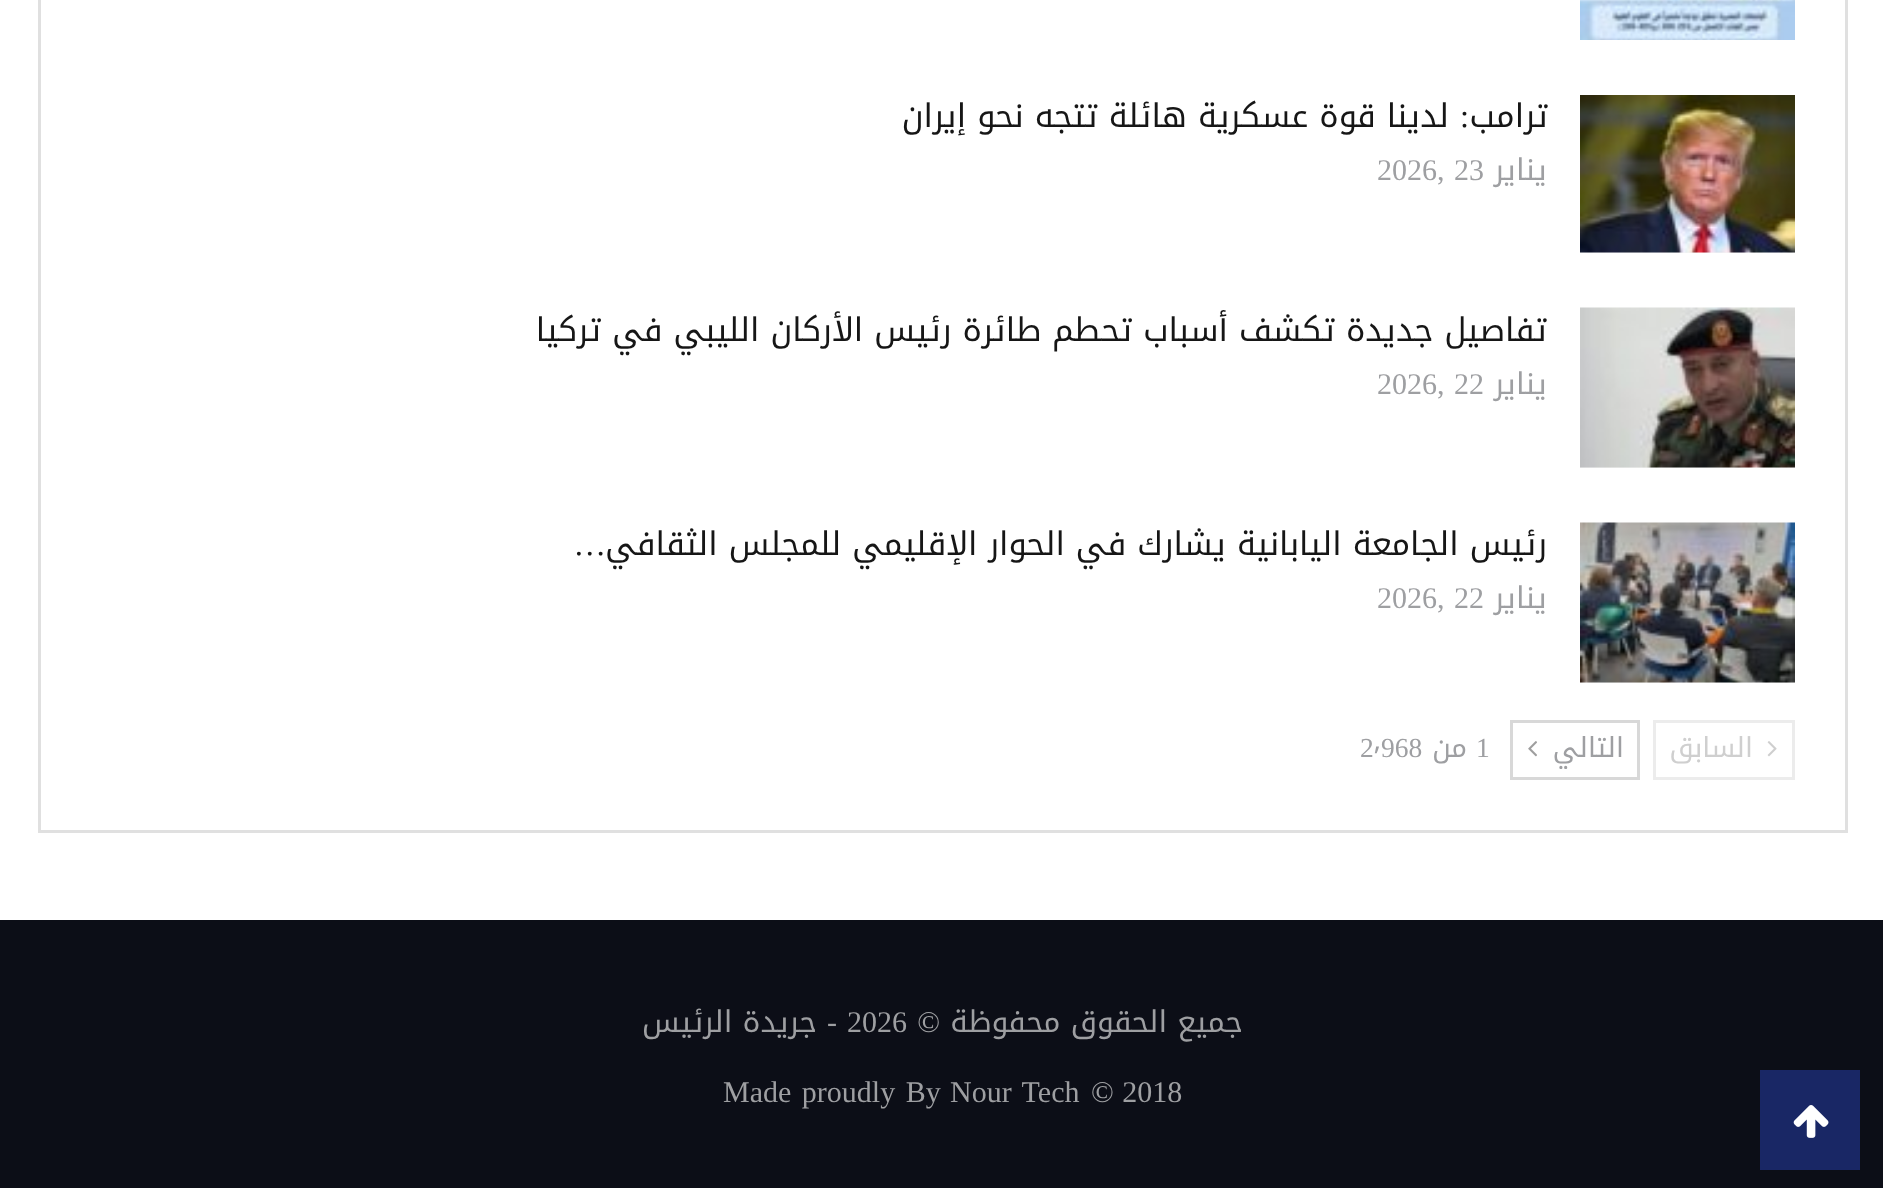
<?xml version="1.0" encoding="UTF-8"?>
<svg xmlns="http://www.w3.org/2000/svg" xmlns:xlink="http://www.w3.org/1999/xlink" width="1883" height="1188">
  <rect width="100%" height="100%" fill="#ffffff" />
  <rect x="39.5" y="-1.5" width="1807" height="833" fill="none" stroke="#e0e0e0" stroke-width="3" />
  <image x="1580" y="0" width="215" height="40" xlink:href="image1.png" />
  <rect x="1580" y="252" width="215" height="1" fill="#f5f5f5" />
  <image x="1580" y="95" width="215" height="158" xlink:href="image2.png" />
  <rect x="1580" y="467" width="215" height="1" fill="#f5f5f5" />
  <image x="1580" y="307" width="215" height="161" xlink:href="image3.png" />
  <rect x="1580" y="682" width="215" height="1" fill="#f5f5f5" />
  <image x="1580" y="522" width="215" height="161" xlink:href="image4.png" />
  <rect x="1654.5" y="721.5" width="139" height="57" fill="none" stroke="#ececec" stroke-width="3" />
  <image x="1767" y="741" width="10" height="16" xlink:href="image5.png" />
  <rect x="1511.5" y="721.5" width="127" height="57" fill="none" stroke="#d8d8d8" stroke-width="3" />
  <image x="1528" y="741" width="9" height="16" xlink:href="image6.png" />
  <rect y="920" width="1883" height="268" fill="#0c0e17" />
  <rect x="1760" y="1070" width="100" height="100" fill="#192765" />
  <image x="1793" y="1105" width="36" height="33" xlink:href="image7.png" />
  <text x="1548" y="127" style="font-family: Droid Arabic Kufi; font-size: 32.5px; direction: rtl; fill: #161616">ترامب</text>
  <text x="1469" y="127" style="font-family: Liberation Serif; font-size: 32.5px; direction: rtl; fill: #161616">:</text>
  <text x="1449" y="127" style="font-family: Droid Arabic Kufi; font-size: 32.5px; direction: rtl; fill: #161616">لدينا قوة عسكرية هائلة تتجه نحو إيران</text>
  <text x="1547" y="180" style="font-family: Droid Arabic Kufi; font-size: 30px; direction: rtl; fill: #9e9fa2">يناير</text>
  <text x="1454" y="180" style="font-family: Liberation Serif; font-size: 30px; fill: #9e9fa2">23</text>
  <text x="1377" y="180" style="font-family: Liberation Serif; font-size: 30px; fill: #9e9fa2">2026,</text>
  <text x="1547" y="341" style="font-family: Droid Arabic Kufi; font-size: 32.5px; direction: rtl; fill: #161616">تفاصيل جديدة تكشف أسباب تحطم طائرة رئيس الأركان الليبي في تركيا</text>
  <text x="1547" y="394" style="font-family: Droid Arabic Kufi; font-size: 30px; direction: rtl; fill: #9e9fa2">يناير</text>
  <text x="1454" y="394" style="font-family: Liberation Serif; font-size: 30px; fill: #9e9fa2">22</text>
  <text x="1377" y="394" style="font-family: Liberation Serif; font-size: 30px; fill: #9e9fa2">2026,</text>
  <text x="1547" y="555" style="font-family: Droid Arabic Kufi; font-size: 32.5px; direction: rtl; fill: #161616">رئيس الجامعة اليابانية يشارك في الحوار الإقليمي للمجلس الثقافي</text>
  <text x="606" y="555" style="font-family: Liberation Serif; font-size: 32.5px; direction: rtl; fill: #161616">…</text>
  <text x="1547" y="608" style="font-family: Droid Arabic Kufi; font-size: 30px; direction: rtl; fill: #9e9fa2">يناير</text>
  <text x="1454" y="608" style="font-family: Liberation Serif; font-size: 30px; fill: #9e9fa2">22</text>
  <text x="1377" y="608" style="font-family: Liberation Serif; font-size: 30px; fill: #9e9fa2">2026,</text>
  <text x="1753" y="757" style="font-family: Droid Arabic Kufi; font-size: 27.5px; direction: rtl; fill: #cfcfcf">السابق</text>
  <text x="1624" y="757" style="font-family: Droid Arabic Kufi; font-size: 27.5px; direction: rtl; fill: #9e9fa2">التالي</text>
  <text x="1476" y="757" style="font-family: Liberation Serif; font-size: 27.5px; fill: #9e9fa2">1</text>
  <text x="1467" y="757" style="font-family: Droid Arabic Kufi; font-size: 27.5px; direction: rtl; fill: #9e9fa2">من</text>
  <text x="1381" y="757" style="font-family: Liberation Serif; font-size: 27.5px; fill: #9e9fa2">968</text>
  <text x="1373" y="757" style="font-family: Droid Arabic Kufi; font-size: 27.5px; fill: #9e9fa2">٬</text>
  <text x="1360" y="757" style="font-family: Liberation Serif; font-size: 27.5px; fill: #9e9fa2">2</text>
  <text x="1243" y="1032" style="font-family: Droid Arabic Kufi; font-size: 30px; direction: rtl; fill: #9e9fa2">جميع الحقوق محفوظة</text>
  <text x="940" y="1032" style="font-family: Liberation Serif; font-size: 30px; direction: rtl; fill: #9e9fa2">©</text>
  <text x="847" y="1032" style="font-family: Liberation Serif; font-size: 30px; fill: #9e9fa2">2026</text>
  <text x="837" y="1032" style="font-family: Liberation Serif; font-size: 30px; direction: rtl; fill: #9e9fa2">-</text>
  <text x="817" y="1032" style="font-family: Droid Arabic Kufi; font-size: 30px; direction: rtl; fill: #9e9fa2">جريدة الرئيس</text>
  <text x="1091" y="1102" word-spacing="1" style="font-family: Liberation Serif; font-size: 30px; fill: #9e9fa2">© 2018</text>
  <text x="950" y="1102" word-spacing="3" style="font-family: Liberation Serif; font-size: 30px; fill: #9e9fa2">Nour Tech</text>
  <text x="723" y="1102" word-spacing="3" style="font-family: Liberation Serif; font-size: 30px; fill: #9e9fa2">Made proudly By</text>
</svg>
